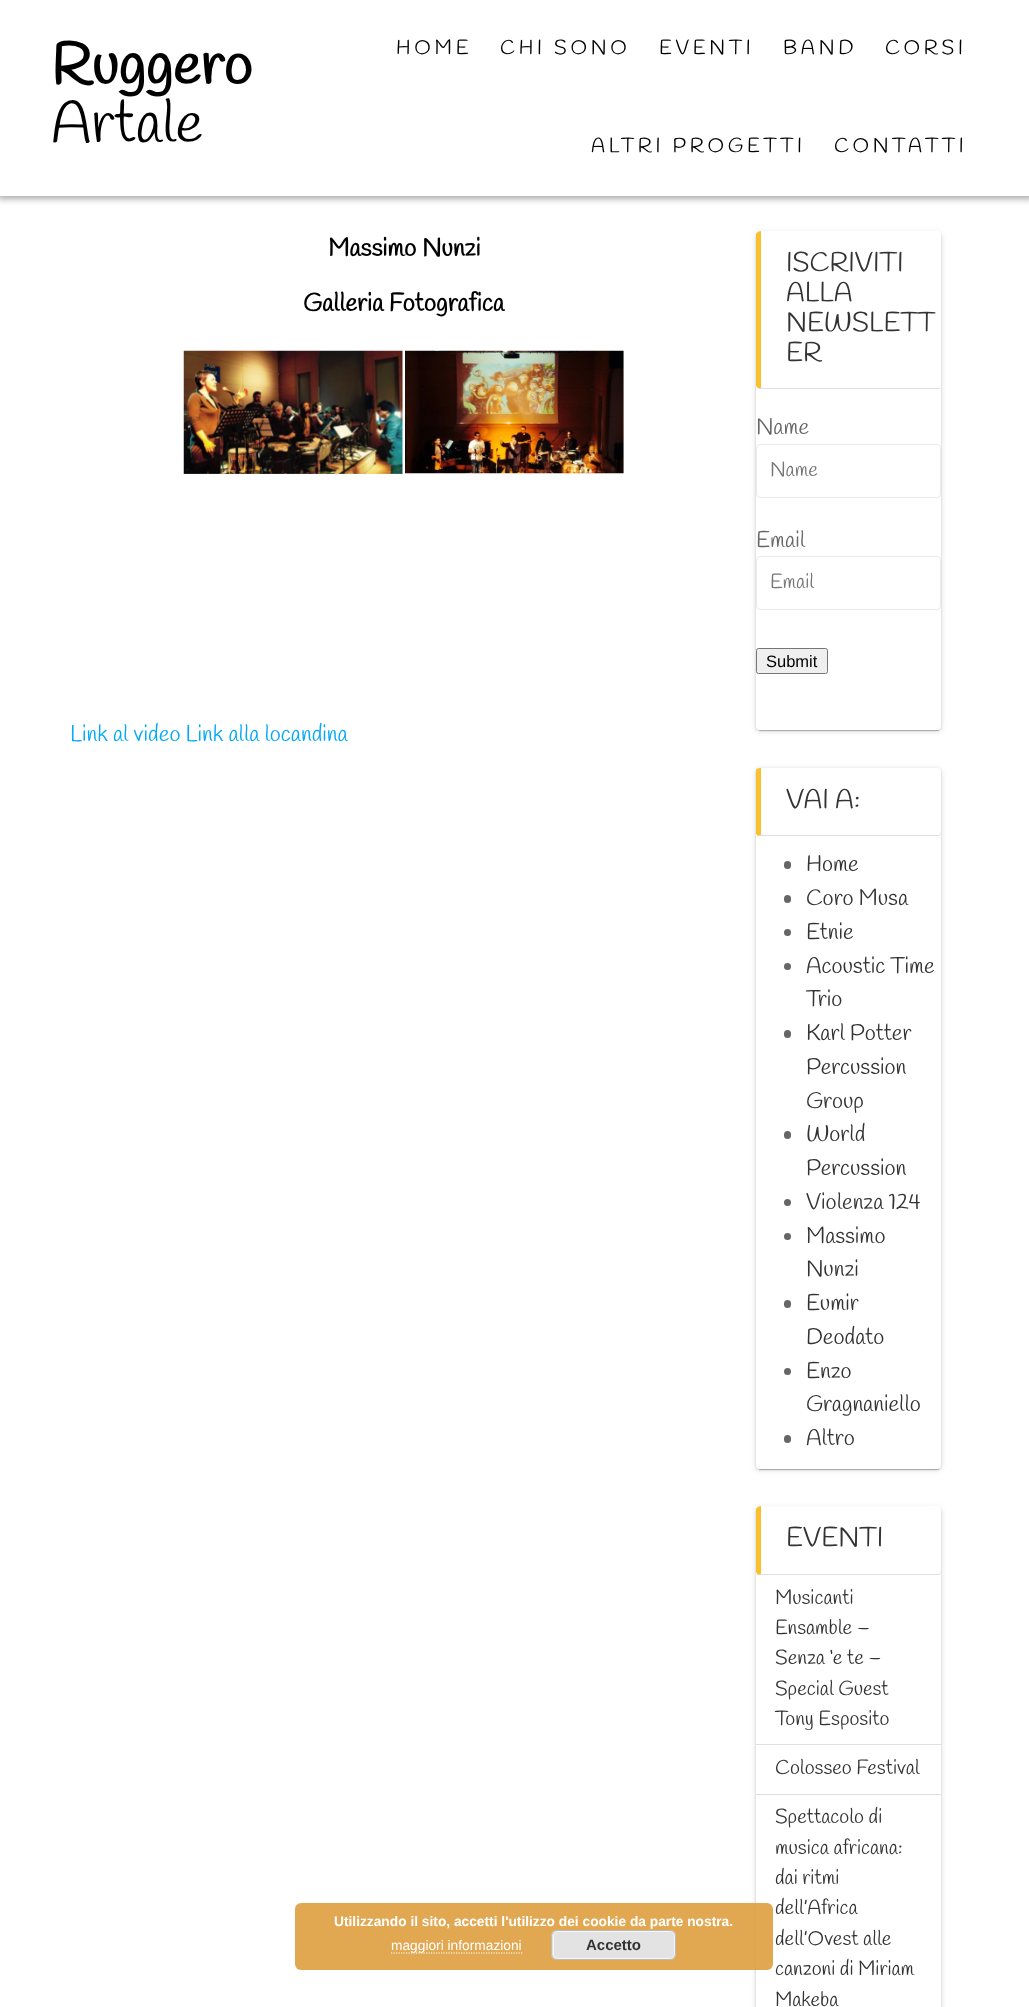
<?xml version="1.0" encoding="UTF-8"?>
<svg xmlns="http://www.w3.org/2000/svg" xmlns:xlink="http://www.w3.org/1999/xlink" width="1029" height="2007">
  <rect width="100%" height="100%" fill="#ffffff" />
  <rect x="-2" y="-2" width="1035" height="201" fill="#000000" fill-opacity="0.33" filter="blur(3px)" />
  <rect width="1029" height="196" fill="#ffffff" />
  <image x="183" y="350" width="220" height="124" xlink:href="image1.png" />
  <image x="405" y="350" width="219" height="124" xlink:href="image2.png" />
  <rect x="756" y="233" width="185" height="498" rx="4" fill="#000000" fill-opacity="0.12" filter="blur(3px)" />
  <rect x="759" y="238" width="180" height="493" rx="1" fill="#000000" fill-opacity="0.2" filter="blur(0.5px)" />
  <rect x="756" y="233" width="185" height="498" rx="4" fill="#000000" fill-opacity="0.14" filter="blur(1px)" />
  <rect x="756" y="231" width="185" height="499" rx="4" fill="#ffffff" />
  <path d="M 759 389 l -1 -1 h 3 h 177 c 2 0 3 -2 3 -3 c 0 2 -1 3 -2 4 z" fill="#e0e0e0" />
  <path d="M 756 234 c 1 -2 3 -3 5 -3 v 157 h -3 l -2 -2 z" fill="#fbc02d" />
  <rect x="756.5" y="444.5" width="184" height="53" rx="3.5" fill="none" stroke="#ebe9eb" />
  <rect x="756.5" y="556.5" width="184" height="53" rx="3.5" fill="none" stroke="#ebe9eb" />
  <rect x="756.5" y="648.5" width="71" height="25" rx="2" fill="#efefef" stroke="#767676" />
  <rect x="756" y="769" width="185" height="701" rx="4" fill="#000000" fill-opacity="0.12" filter="blur(3px)" />
  <rect x="759" y="774" width="180" height="696" rx="1" fill="#000000" fill-opacity="0.2" filter="blur(0.5px)" />
  <rect x="756" y="769" width="185" height="701" rx="4" fill="#000000" fill-opacity="0.14" filter="blur(1px)" />
  <rect x="756" y="768" width="185" height="701" rx="4" fill="#ffffff" />
  <path d="M 761 835 l -3 1 h 180 c 2 0 3 -2 3 -4 l -1 2 l -1 1 z" fill="#e0e0e0" />
  <path d="M 760 768 h 1 v 67 l -3 1 l -2 -2 v -64 c 0 -1 3 -2 4 -2 z" fill="#fbc02d" />
  <rect x="784" y="861" width="7" height="8" rx="3.5" fill="#666666" />
  <rect x="784" y="895" width="7" height="8" rx="3.5" fill="#666666" />
  <circle cx="787.5" cy="932.5" r="3.5" fill="#666666" />
  <circle cx="787.5" cy="966.5" r="3.5" fill="#666666" />
  <rect x="784" y="1030" width="7" height="8" rx="3.5" fill="#666666" />
  <rect x="784" y="1131" width="7" height="8" rx="3.5" fill="#666666" />
  <circle cx="787.5" cy="1202.5" r="3.5" fill="#666666" />
  <circle cx="787.5" cy="1236.5" r="3.5" fill="#666666" />
  <rect x="784" y="1300" width="7" height="8" rx="3.5" fill="#666666" />
  <circle cx="787.5" cy="1371.5" r="3.5" fill="#666666" />
  <rect x="784" y="1435" width="7" height="8" rx="3.5" fill="#666666" />
  <rect x="756" y="1508" width="185" height="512" rx="4" fill="#000000" fill-opacity="0.12" filter="blur(3px)" />
  <rect x="756" y="1508" width="185" height="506" rx="4" fill="#000000" fill-opacity="0.14" filter="blur(1px)" />
  <rect x="756" y="1506" width="185" height="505" rx="4" fill="#ffffff" />
  <path d="M 760 1575 h 178 c 2 0 3 -2 3 -4 l -1 2 l -1 1 h -178 l -3 1 z" fill="#e0e0e0" />
  <path d="M 756 1509 c 1 -2 3 -3 5 -3 v 68 l -3 1 l -2 -3 z" fill="#fbc02d" />
  <rect x="756" y="1744" width="185" height="1" fill="#e0e0e0" />
  <rect x="756" y="1794" width="185" height="1" fill="#e0e0e0" />
  <rect x="295" y="1903" width="478" height="67" rx="6" fill="#dd9933" fill-opacity="0.85" />
  <path d="M 391 1953 h 131.5" fill="none" stroke="#ffffff" stroke-width="1.2" stroke-dasharray="1.25 1.25" />
  <rect x="551" y="1930" width="125" height="30" rx="6" fill="#e3e3e3" />
  <rect x="553.5" y="1931.5" width="121" height="27" rx="4.5" fill="none" stroke="#f6f6f6" />
  <rect x="551.5" y="1930.5" width="124" height="29" rx="5.5" fill="none" stroke="#bbbbbb" />
  <text x="51" y="84" style="font-family: Handlee; font-size: 58.5px; font-weight: bold; fill: #000000">Ruggero</text>
  <text x="51" y="142" style="font-family: Handlee; font-size: 58.5px; fill: #000000">Artale</text>
  <text x="396" y="54" style="font-family: Handlee; font-size: 20.25px; letter-spacing: 3.75px; fill: #000000">HOME</text>
  <text x="500" y="54" style="font-family: Handlee; font-size: 20.25px; letter-spacing: 3.75px; fill: #000000">CHI SONO</text>
  <text x="659" y="54" style="font-family: Handlee; font-size: 20.25px; letter-spacing: 3.75px; fill: #000000">EVENTI</text>
  <text x="783" y="54" style="font-family: Handlee; font-size: 20.25px; letter-spacing: 3.75px; fill: #000000">BAND</text>
  <text x="885" y="54" style="font-family: Handlee; font-size: 20.25px; letter-spacing: 3.75px; fill: #000000">CORSI</text>
  <text x="591" y="152" style="font-family: Handlee; font-size: 20.25px; letter-spacing: 3.75px; fill: #000000">ALTRI PROGETTI</text>
  <text x="834" y="152" style="font-family: Handlee; font-size: 20.25px; letter-spacing: 3.75px; fill: #000000">CONTATTI</text>
  <text x="328" y="256" style="font-family: Handlee; font-size: 25px; font-weight: bold; fill: #000000">Massimo Nunzi</text>
  <text x="303" y="311" style="font-family: Handlee; font-size: 25px; font-weight: bold; fill: #000000">Galleria Fotografica</text>
  <text x="70" y="741" style="font-family: Handlee; font-size: 22.5px; fill: #03a9f4">Link al video Link alla locandina</text>
  <text x="786" y="271" style="font-family: Handlee; font-size: 27px; fill: #333333">ISCRIVITI</text>
  <text x="786" y="301" style="font-family: Handlee; font-size: 27px; fill: #333333">ALLA</text>
  <text x="786" y="331" style="font-family: Handlee; font-size: 27px; fill: #333333">NEWSLETT</text>
  <text x="786" y="361" style="font-family: Handlee; font-size: 27px; fill: #333333">ER</text>
  <text x="756" y="434" style="font-family: Handlee; font-size: 22.5px; fill: #666666">Name</text>
  <text x="770" y="476" style="font-family: Handlee; font-size: 20.25px; fill: #757575">Name</text>
  <text x="756" y="547" style="font-family: Handlee; font-size: 22.5px; fill: #666666">Email</text>
  <text x="770" y="588" style="font-family: Handlee; font-size: 20.25px; fill: #757575">Email</text>
  <text x="766" y="667" style="font-family: Liberation Sans; font-size: 16.5px; fill: #000000">Submit</text>
  <text x="786" y="808" style="font-family: Handlee; font-size: 27px; fill: #333333">VAI A:</text>
  <text x="806" y="871" style="font-family: Handlee; font-size: 22.5px; fill: #333333">Home</text>
  <text x="806" y="905" style="font-family: Handlee; font-size: 22.5px; fill: #333333">Coro Musa</text>
  <text x="806" y="939" style="font-family: Handlee; font-size: 22.5px; fill: #333333">Etnie</text>
  <text x="806" y="973" style="font-family: Handlee; font-size: 22.5px; fill: #333333">Acoustic Time</text>
  <text x="806" y="1006" style="font-family: Handlee; font-size: 22.5px; fill: #333333">Trio</text>
  <text x="806" y="1040" style="font-family: Handlee; font-size: 22.5px; fill: #333333">Karl Potter</text>
  <text x="806" y="1074" style="font-family: Handlee; font-size: 22.5px; fill: #333333">Percussion</text>
  <text x="806" y="1108" style="font-family: Handlee; font-size: 22.5px; fill: #333333">Group</text>
  <text x="806" y="1141" style="font-family: Handlee; font-size: 22.5px; fill: #333333">World</text>
  <text x="806" y="1175" style="font-family: Handlee; font-size: 22.5px; fill: #333333">Percussion</text>
  <text x="806" y="1209" style="font-family: Handlee; font-size: 22.5px; fill: #333333">Violenza 124</text>
  <text x="806" y="1243" style="font-family: Handlee; font-size: 22.5px; fill: #333333">Massimo</text>
  <text x="806" y="1276" style="font-family: Handlee; font-size: 22.5px; fill: #333333">Nunzi</text>
  <text x="806" y="1310" style="font-family: Handlee; font-size: 22.5px; fill: #333333">Eumir</text>
  <text x="806" y="1344" style="font-family: Handlee; font-size: 22.5px; fill: #333333">Deodato</text>
  <text x="806" y="1378" style="font-family: Handlee; font-size: 22.5px; fill: #333333">Enzo</text>
  <text x="806" y="1411" style="font-family: Handlee; font-size: 22.5px; fill: #333333">Gragnaniello</text>
  <text x="806" y="1445" style="font-family: Handlee; font-size: 22.5px; fill: #333333">Altro</text>
  <text x="786" y="1546" style="font-family: Handlee; font-size: 27px; fill: #333333">EVENTI</text>
  <text x="775" y="1604" style="font-family: Handlee; font-size: 20.25px; fill: #333333">Musicanti</text>
  <text x="775" y="1634" style="font-family: Handlee; font-size: 20.25px; fill: #333333">Ensamble –</text>
  <text x="775" y="1664" style="font-family: Handlee; font-size: 20.25px; fill: #333333">Senza ‘e te –</text>
  <text x="775" y="1695" style="font-family: Handlee; font-size: 20.25px; fill: #333333">Special Guest</text>
  <text x="775" y="1725" style="font-family: Handlee; font-size: 20.25px; fill: #333333">Tony Esposito</text>
  <text x="775" y="1774" style="font-family: Handlee; font-size: 20.25px; fill: #333333">Colosseo Festival</text>
  <text x="775" y="1823" style="font-family: Handlee; font-size: 20.25px; fill: #333333">Spettacolo di</text>
  <text x="775" y="1854" style="font-family: Handlee; font-size: 20.25px; fill: #333333">musica africana:</text>
  <text x="775" y="1884" style="font-family: Handlee; font-size: 20.25px; fill: #333333">dai ritmi</text>
  <text x="775" y="1914" style="font-family: Handlee; font-size: 20.25px; fill: #333333">dell’Africa</text>
  <text x="775" y="1945" style="font-family: Handlee; font-size: 20.25px; fill: #333333">dell’Ovest alle</text>
  <text x="775" y="1975" style="font-family: Handlee; font-size: 20.25px; fill: #333333">canzoni di Miriam</text>
  <text x="775" y="2006" style="font-family: Handlee; font-size: 20.25px; fill: #333333">Makeba</text>
  <text x="334" y="1926" style="font-family: Liberation Sans; font-size: 13.75px; font-weight: bold; fill: #ffffff">Utilizzando il sito, accetti l'utilizzo dei cookie da parte nostra.</text>
  <text x="391" y="1950" style="font-family: Liberation Sans; font-size: 13.75px; fill: #ffffff">maggiori informazioni</text>
  <text x="586" y="1950" style="font-family: Liberation Sans; font-size: 15px; font-weight: bold; fill: #333333">Accetto</text>
</svg>
